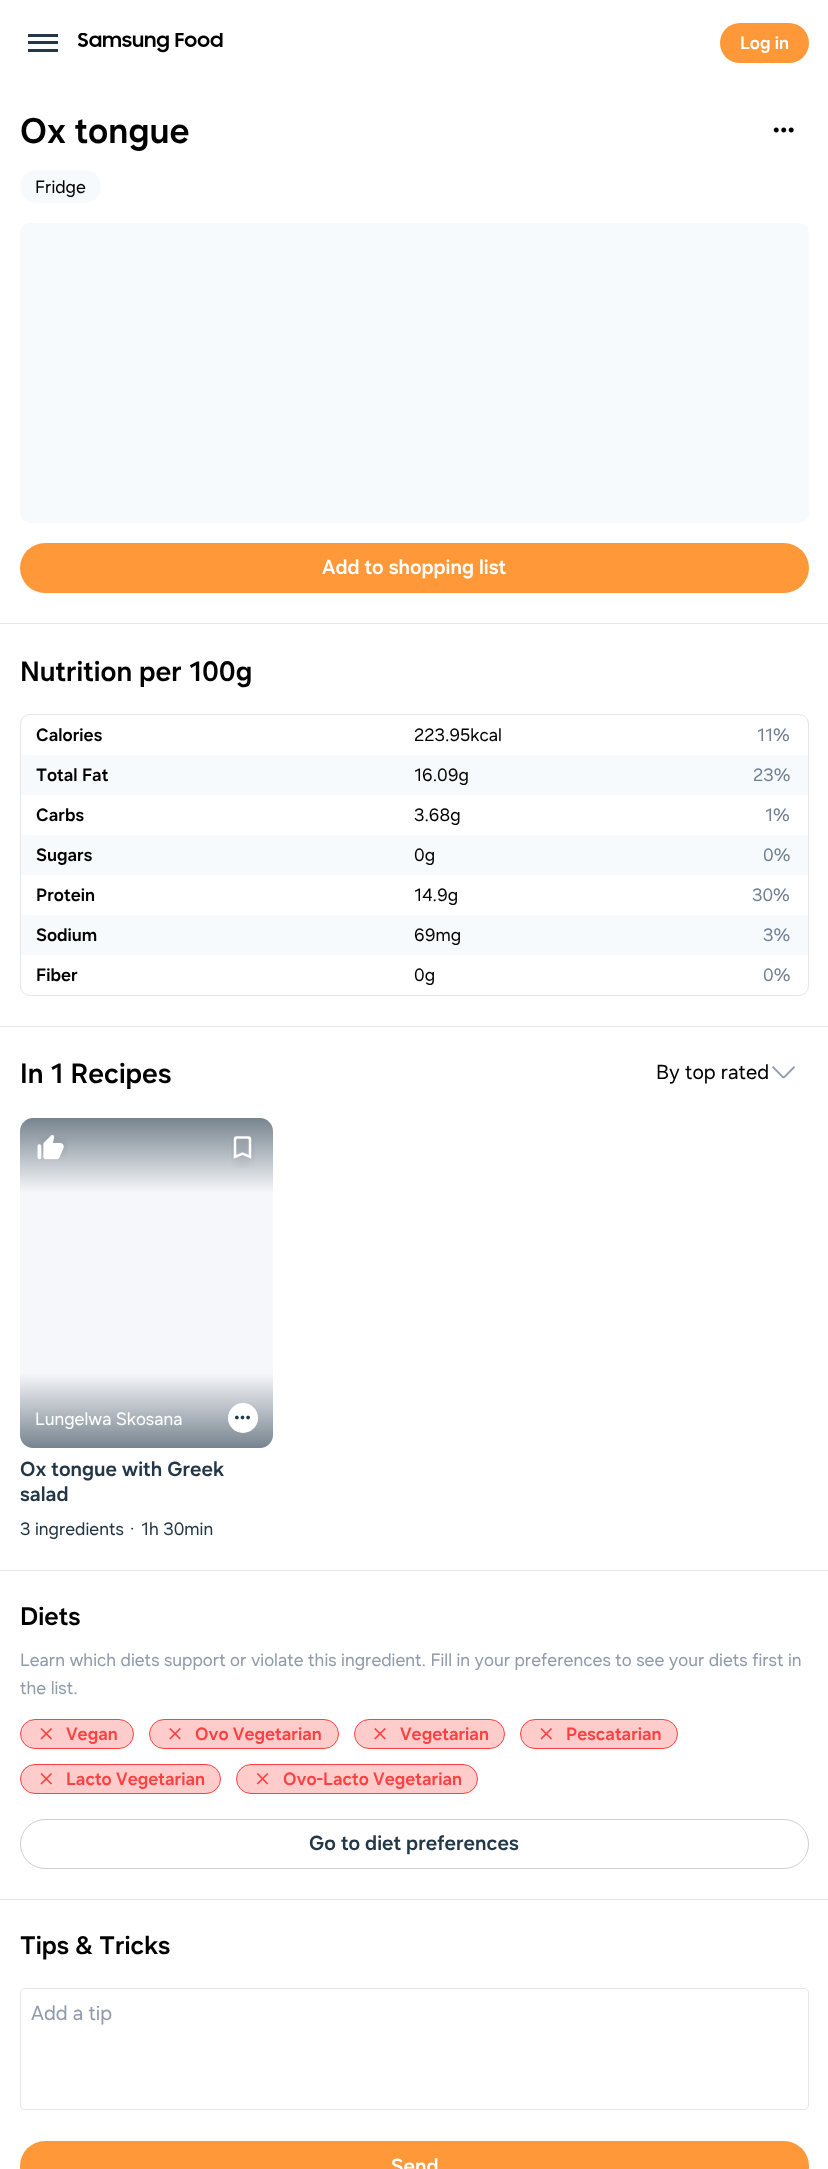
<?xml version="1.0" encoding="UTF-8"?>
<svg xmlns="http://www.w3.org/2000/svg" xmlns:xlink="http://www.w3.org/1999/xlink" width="828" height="2169">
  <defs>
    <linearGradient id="g1" gradientUnits="userSpaceOnUse" x1="146" y1="1193" x2="146" y2="1118"><stop offset="0" stop-color="#f6f7fa" /><stop offset="1" stop-color="#77848f" /></linearGradient>
    <linearGradient id="g2" gradientUnits="userSpaceOnUse" x1="146" y1="1373" x2="146" y2="1448"><stop offset="0" stop-color="#f6f7fa" /><stop offset="1" stop-color="#77848f" /></linearGradient>
    <radialGradient id="g3" gradientUnits="userSpaceOnUse" cx="0" cy="0" r="1" gradientTransform="matrix(25 0 0 21 53 1148)"><stop offset="0" stop-color="#000000" stop-opacity="0.08" /><stop offset="0.8" stop-color="#000000" stop-opacity="0" /></radialGradient>
    <radialGradient id="g4" gradientUnits="userSpaceOnUse" cx="0" cy="0" r="1" gradientTransform="matrix(21 0 0 27 243 1152)"><stop offset="0" stop-color="#000000" stop-opacity="0.08" /><stop offset="0.8" stop-color="#000000" stop-opacity="0" /></radialGradient>
  </defs>
  <rect width="100%" height="100%" fill="#ffffff" />
  <rect x="28" y="34" width="30" height="3" fill="#233748" />
  <rect x="28" y="41" width="30" height="3" fill="#233748" />
  <rect x="28" y="49" width="30" height="3" fill="#233748" />
  <image x="78" y="33" width="145" height="20" xlink:href="image1.png" />
  <rect x="720" y="23" width="89" height="40" rx="20" fill="#ff9838" />
  <image x="773" y="127" width="21" height="6" xlink:href="image2.png" />
  <rect y="623" width="828" height="1" fill="#e4e6ea" />
  <rect x="20" y="170" width="81" height="33" rx="16.5" fill="#f7fafc" />
  <rect x="20" y="223" width="789" height="300" rx="10" fill="#f7fafc" />
  <rect x="20" y="543" width="789" height="50" rx="25" fill="#ff9838" />
  <rect y="1026" width="828" height="1" fill="#e4e6ea" />
  <rect x="20.5" y="714.5" width="788" height="281" rx="9.5" fill="none" stroke="#e4e6ea" />
  <rect x="21" y="755" width="787" height="40" fill="#f7fafc" />
  <rect x="21" y="835" width="787" height="40" fill="#f7fafc" />
  <rect x="21" y="915" width="787" height="40" fill="#f7fafc" />
  <rect y="1570" width="828" height="1" fill="#e4e6ea" />
  <image x="772" y="1066" width="23" height="13" xlink:href="image3.png" />
  <rect x="20" y="1118" width="253" height="330" rx="13" fill="#f6f7fa" />
  <path d="M 33 1118 h 227 c 7 0 13 6 13 13 v 62 h -253 v -62 c 0 -7 6 -13 13 -13 z" fill="url(#g1)" />
  <path d="M 20 1373 h 253 v 62 c 0 7 -6 13 -13 13 h -227 c -7 0 -13 -6 -13 -13 z" fill="url(#g2)" />
  <rect x="39" y="1136" width="29" height="24" fill="url(#g3)" />
  <image x="37" y="1135" width="27" height="25" xlink:href="image4.png" />
  <rect x="231" y="1136" width="24" height="32" fill="url(#g4)" />
  <image x="233" y="1136" width="19" height="23" xlink:href="image5.png" />
  <circle cx="243" cy="1418" r="15" fill="#ffffff" />
  <image x="235" y="1415" width="15" height="5" xlink:href="image6.png" />
  <rect y="1899" width="828" height="1" fill="#e4e6ea" />
  <rect x="20.5" y="1719.5" width="113" height="29" rx="14.5" fill="#ffcccc" stroke="#ff4040" />
  <image x="40" y="1728" width="12" height="12" xlink:href="image7.png" />
  <rect x="149.5" y="1719.5" width="189" height="29" rx="14.5" fill="#ffcccc" stroke="#ff4040" />
  <image x="169" y="1728" width="12" height="12" xlink:href="image8.png" />
  <rect x="354.5" y="1719.5" width="150" height="29" rx="14.5" fill="#ffcccc" stroke="#ff4040" />
  <image x="374" y="1728" width="12" height="12" xlink:href="image8.png" />
  <rect x="520.5" y="1719.5" width="157" height="29" rx="14.5" fill="#ffcccc" stroke="#ff4040" />
  <image x="540" y="1728" width="12" height="12" xlink:href="image7.png" />
  <rect x="20.5" y="1764.5" width="200" height="29" rx="14.5" fill="#ffcccc" stroke="#ff4040" />
  <image x="40" y="1773" width="12" height="12" xlink:href="image7.png" />
  <rect x="236.5" y="1764.5" width="241" height="29" rx="14.5" fill="#ffcccc" stroke="#ff4040" />
  <image x="256" y="1773" width="13" height="12" xlink:href="image9.png" />
  <rect x="20.5" y="1819.5" width="788" height="49" rx="24.5" fill="none" stroke="#cfcfcf" />
  <rect x="20.5" y="1988.5" width="788" height="121" rx="4.5" fill="none" stroke="#e4e6ea" />
  <rect x="20" y="2141" width="789" height="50" rx="25" fill="#ff9838" />
  <text x="740" y="49" style="font-family: 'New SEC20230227'; font-size: 17.5px; font-weight: 600; fill: #ffffff">Log in</text>
  <text x="20" y="143" style="font-family: 'New SEC20230227'; font-size: 35px; font-weight: 600; fill: #010101">Ox tongue</text>
  <text x="35" y="193" style="font-family: 'New SEC20230227'; font-size: 17.5px; fill: #010101">Fridge</text>
  <text x="322" y="574" style="font-family: 'New SEC20230227'; font-size: 20px; font-weight: 600; fill: #ffffff">Add to shopping list</text>
  <text x="20" y="681" style="font-family: 'New SEC20230227'; font-size: 27.5px; font-weight: 600; fill: #010101">Nutrition per 100g</text>
  <text x="36" y="741" style="font-family: 'New SEC20230227'; font-size: 17.5px; font-weight: 600; fill: #010101">Calories</text>
  <text x="414" y="741" style="font-family: 'New SEC20230227'; font-size: 17.5px; fill: #010101">223.95kcal</text>
  <text x="757" y="741" style="font-family: 'New SEC20230227'; font-size: 17.5px; fill: #717f94">11%</text>
  <text x="36" y="781" style="font-family: 'New SEC20230227'; font-size: 17.5px; font-weight: 600; fill: #010101">Total Fat</text>
  <text x="414" y="781" style="font-family: 'New SEC20230227'; font-size: 17.5px; fill: #010101">16.09g</text>
  <text x="753" y="781" style="font-family: 'New SEC20230227'; font-size: 17.5px; fill: #717f94">23%</text>
  <text x="36" y="821" style="font-family: 'New SEC20230227'; font-size: 17.5px; font-weight: 600; fill: #010101">Carbs</text>
  <text x="414" y="821" style="font-family: 'New SEC20230227'; font-size: 17.5px; fill: #010101">3.68g</text>
  <text x="765" y="821" style="font-family: 'New SEC20230227'; font-size: 17.5px; fill: #717f94">1%</text>
  <text x="36" y="861" style="font-family: 'New SEC20230227'; font-size: 17.5px; font-weight: 600; fill: #010101">Sugars</text>
  <text x="414" y="861" style="font-family: 'New SEC20230227'; font-size: 17.5px; fill: #010101">0g</text>
  <text x="763" y="861" style="font-family: 'New SEC20230227'; font-size: 17.5px; fill: #717f94">0%</text>
  <text x="36" y="901" style="font-family: 'New SEC20230227'; font-size: 17.5px; font-weight: 600; fill: #010101">Protein</text>
  <text x="414" y="901" style="font-family: 'New SEC20230227'; font-size: 17.5px; fill: #010101">14.9g</text>
  <text x="752" y="901" style="font-family: 'New SEC20230227'; font-size: 17.5px; fill: #717f94">30%</text>
  <text x="36" y="941" style="font-family: 'New SEC20230227'; font-size: 17.5px; font-weight: 600; fill: #010101">Sodium</text>
  <text x="414" y="941" style="font-family: 'New SEC20230227'; font-size: 17.5px; fill: #010101">69mg</text>
  <text x="763" y="941" style="font-family: 'New SEC20230227'; font-size: 17.5px; fill: #717f94">3%</text>
  <text x="36" y="981" style="font-family: 'New SEC20230227'; font-size: 17.5px; font-weight: 600; fill: #010101">Fiber</text>
  <text x="414" y="981" style="font-family: 'New SEC20230227'; font-size: 17.5px; fill: #010101">0g</text>
  <text x="763" y="981" style="font-family: 'New SEC20230227'; font-size: 17.5px; fill: #717f94">0%</text>
  <text x="20" y="1083" style="font-family: 'New SEC20230227'; font-size: 27.5px; font-weight: 600; fill: #010101">In 1 Recipes</text>
  <text x="656" y="1079" style="font-family: 'New SEC20230227'; font-size: 20px; fill: #010101">By top rated</text>
  <text x="35" y="1425" style="font-family: 'New SEC20230227'; font-size: 17.5px; fill: #ffffff">Lungelwa Skosana</text>
  <text x="20" y="1476" style="font-family: 'New SEC20230227'; font-size: 20px; font-weight: 600; fill: #233748">Ox tongue with Greek</text>
  <text x="20" y="1501" style="font-family: 'New SEC20230227'; font-size: 20px; font-weight: 600; fill: #233748">salad</text>
  <text x="20" y="1535" style="font-family: 'New SEC20230227'; font-size: 17.5px; fill: #233748">3 ingredients</text>
  <text x="130" y="1535" style="font-family: 'New SEC20230227'; font-size: 17.5px; fill: #233748">·</text>
  <text x="141" y="1535" style="font-family: 'New SEC20230227'; font-size: 17.5px; fill: #233748">1h 30min</text>
  <text x="20" y="1625" style="font-family: 'New SEC20230227'; font-size: 25px; font-weight: 600; fill: #010101">Diets</text>
  <text x="20" y="1666" style="font-family: 'New SEC20230227'; font-size: 17.5px; fill: #909bab">Learn which diets support or violate this ingredient. Fill in your preferences to see your diets first in</text>
  <text x="20" y="1694" style="font-family: 'New SEC20230227'; font-size: 17.5px; fill: #909bab">the list.</text>
  <text x="66" y="1740" style="font-family: 'New SEC20230227'; font-size: 17.5px; font-weight: 600; fill: #ff4040">Vegan</text>
  <text x="195" y="1740" style="font-family: 'New SEC20230227'; font-size: 17.5px; font-weight: 600; fill: #ff4040">Ovo Vegetarian</text>
  <text x="400" y="1740" style="font-family: 'New SEC20230227'; font-size: 17.5px; font-weight: 600; fill: #ff4040">Vegetarian</text>
  <text x="566" y="1740" style="font-family: 'New SEC20230227'; font-size: 17.5px; font-weight: 600; fill: #ff4040">Pescatarian</text>
  <text x="66" y="1785" style="font-family: 'New SEC20230227'; font-size: 17.5px; font-weight: 600; fill: #ff4040">Lacto Vegetarian</text>
  <text x="283" y="1785" style="font-family: 'New SEC20230227'; font-size: 17.5px; font-weight: 600; fill: #ff4040">Ovo-Lacto Vegetarian</text>
  <text x="309" y="1850" style="font-family: 'New SEC20230227'; font-size: 20px; font-weight: 600; fill: #233748">Go to diet preferences</text>
  <text x="20" y="1954" style="font-family: 'New SEC20230227'; font-size: 25px; font-weight: 600; fill: #010101">Tips &amp; Tricks</text>
  <text x="31" y="2020" style="font-family: 'New SEC20230227'; font-size: 20px; fill: #909bab">Add a tip</text>
  <text x="391" y="2173" style="font-family: 'New SEC20230227'; font-size: 20px; font-weight: 600; fill: #ffffff">Send</text>
</svg>
